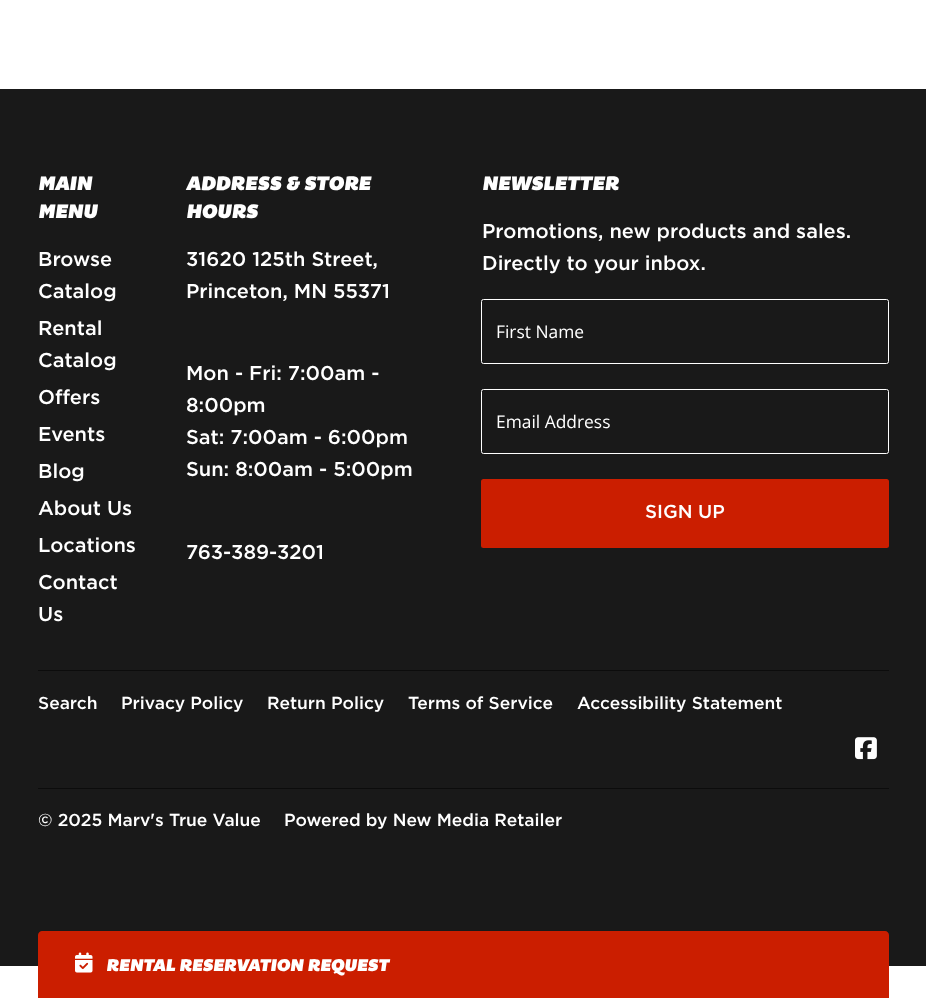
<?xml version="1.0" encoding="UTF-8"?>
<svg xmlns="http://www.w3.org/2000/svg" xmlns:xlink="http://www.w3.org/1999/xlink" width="926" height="998">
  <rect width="100%" height="100%" fill="#ffffff" />
  <rect y="89" width="926" height="877" fill="#191919" />
  <rect x="481.5" y="299.5" width="407" height="64" rx="2" fill="none" stroke="#ffffff" />
  <rect x="481.5" y="389.5" width="407" height="64" rx="2" fill="none" stroke="#ffffff" />
  <rect x="481" y="479" width="408" height="69" rx="2.5" fill="#cb1e00" />
  <rect x="38" y="670" width="851" height="1" fill="#0c0c0c" />
  <image x="855" y="737" width="22" height="23" xlink:href="image1.png" />
  <rect x="38" y="788" width="851" height="1" fill="#0c0c0c" />
  <path d="M 42 931 h 843 c 2 0 4 2 4 4 v 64 h -851 v -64 c 0 -2 2 -4 4 -4 z" fill="#cb1e00" />
  <image x="75" y="952" width="18" height="21" xlink:href="image2.png" />
  <text x="38" y="190" style="font-family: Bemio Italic; font-size: 20px; font-style: italic; fill: #ffffff">MAIN</text>
  <text x="38" y="218" style="font-family: Bemio Italic; font-size: 20px; font-style: italic; fill: #ffffff">MENU</text>
  <text x="38" y="266" style="font-family: Gotham; font-size: 20px; font-weight: 500; fill: #ffffff">Browse</text>
  <text x="38" y="298" style="font-family: Gotham; font-size: 20px; font-weight: 500; fill: #ffffff">Catalog</text>
  <text x="38" y="335" style="font-family: Gotham; font-size: 20px; font-weight: 500; fill: #ffffff">Rental</text>
  <text x="38" y="367" style="font-family: Gotham; font-size: 20px; font-weight: 500; fill: #ffffff">Catalog</text>
  <text x="38" y="404" style="font-family: Gotham; font-size: 20px; font-weight: 500; fill: #ffffff">Offers</text>
  <text x="38" y="441" style="font-family: Gotham; font-size: 20px; font-weight: 500; fill: #ffffff">Events</text>
  <text x="38" y="478" style="font-family: Gotham; font-size: 20px; font-weight: 500; fill: #ffffff">Blog</text>
  <text x="38" y="515" style="font-family: Gotham; font-size: 20px; font-weight: 500; fill: #ffffff">About Us</text>
  <text x="38" y="552" style="font-family: Gotham; font-size: 20px; font-weight: 500; fill: #ffffff">Locations</text>
  <text x="38" y="589" style="font-family: Gotham; font-size: 20px; font-weight: 500; fill: #ffffff">Contact</text>
  <text x="38" y="621" style="font-family: Gotham; font-size: 20px; font-weight: 500; fill: #ffffff">Us</text>
  <text x="186" y="190" style="font-family: Bemio Italic; font-size: 20px; font-style: italic; fill: #ffffff">ADDRESS &amp; STORE</text>
  <text x="186" y="218" style="font-family: Bemio Italic; font-size: 20px; font-style: italic; fill: #ffffff">HOURS</text>
  <text x="186" y="266" style="font-family: Gotham; font-size: 20px; font-weight: 500; fill: #ffffff">31620 125th Street,</text>
  <text x="186" y="298" style="font-family: Gotham; font-size: 20px; font-weight: 500; fill: #ffffff">Princeton, MN 55371</text>
  <text x="186" y="380" style="font-family: Gotham; font-size: 20px; font-weight: 500; fill: #ffffff">Mon - Fri: 7:00am -</text>
  <text x="186" y="412" style="font-family: Gotham; font-size: 20px; font-weight: 500; fill: #ffffff">8:00pm</text>
  <text x="186" y="444" style="font-family: Gotham; font-size: 20px; font-weight: 500; fill: #ffffff">Sat: 7:00am - 6:00pm</text>
  <text x="186" y="476" style="font-family: Gotham; font-size: 20px; font-weight: 500; fill: #ffffff">Sun: 8:00am - 5:00pm</text>
  <text x="186" y="559" style="font-family: Gotham; font-size: 20px; font-weight: 500; fill: #ffffff">763-389-3201</text>
  <text x="482" y="190" style="font-family: Bemio Italic; font-size: 20px; font-style: italic; fill: #ffffff">NEWSLETTER</text>
  <text x="482" y="238" style="font-family: Gotham; font-size: 20px; font-weight: 500; fill: #ffffff">Promotions, new products and sales.</text>
  <text x="482" y="270" style="font-family: Gotham; font-size: 20px; font-weight: 500; fill: #ffffff">Directly to your inbox.</text>
  <text x="496" y="338" style="font-family: Open Sans; font-size: 17.4px; fill: #ffffff">First Name</text>
  <text x="496" y="428" style="font-family: Open Sans; font-size: 17.4px; fill: #ffffff">Email Address</text>
  <text x="645" y="518" style="font-family: Gotham; font-size: 18.75px; font-weight: 500; fill: #ffffff">SIGN UP</text>
  <text x="38" y="709" style="font-family: Gotham; font-size: 17.4px; font-weight: 500; fill: #ffffff">Search</text>
  <text x="121" y="709" style="font-family: Gotham; font-size: 17.4px; font-weight: 500; fill: #ffffff">Privacy Policy</text>
  <text x="267" y="709" style="font-family: Gotham; font-size: 17.4px; font-weight: 500; fill: #ffffff">Return Policy</text>
  <text x="408" y="709" style="font-family: Gotham; font-size: 17.4px; font-weight: 500; fill: #ffffff">Terms of Service</text>
  <text x="577" y="709" style="font-family: Gotham; font-size: 17.4px; font-weight: 500; fill: #ffffff">Accessibility Statement</text>
  <text x="38" y="826" style="font-family: Gotham; font-size: 17.4px; font-weight: 500; fill: #ffffff">© 2025 Marv's True Value</text>
  <text x="284" y="826" style="font-family: Gotham; font-size: 17.4px; font-weight: 500; fill: #ffffff">Powered by New Media Retailer</text>
  <text x="106" y="971" style="font-family: Bemio Italic; font-size: 17.4px; font-style: italic; fill: #ffffff">RENTAL RESERVATION REQUEST</text>
</svg>
